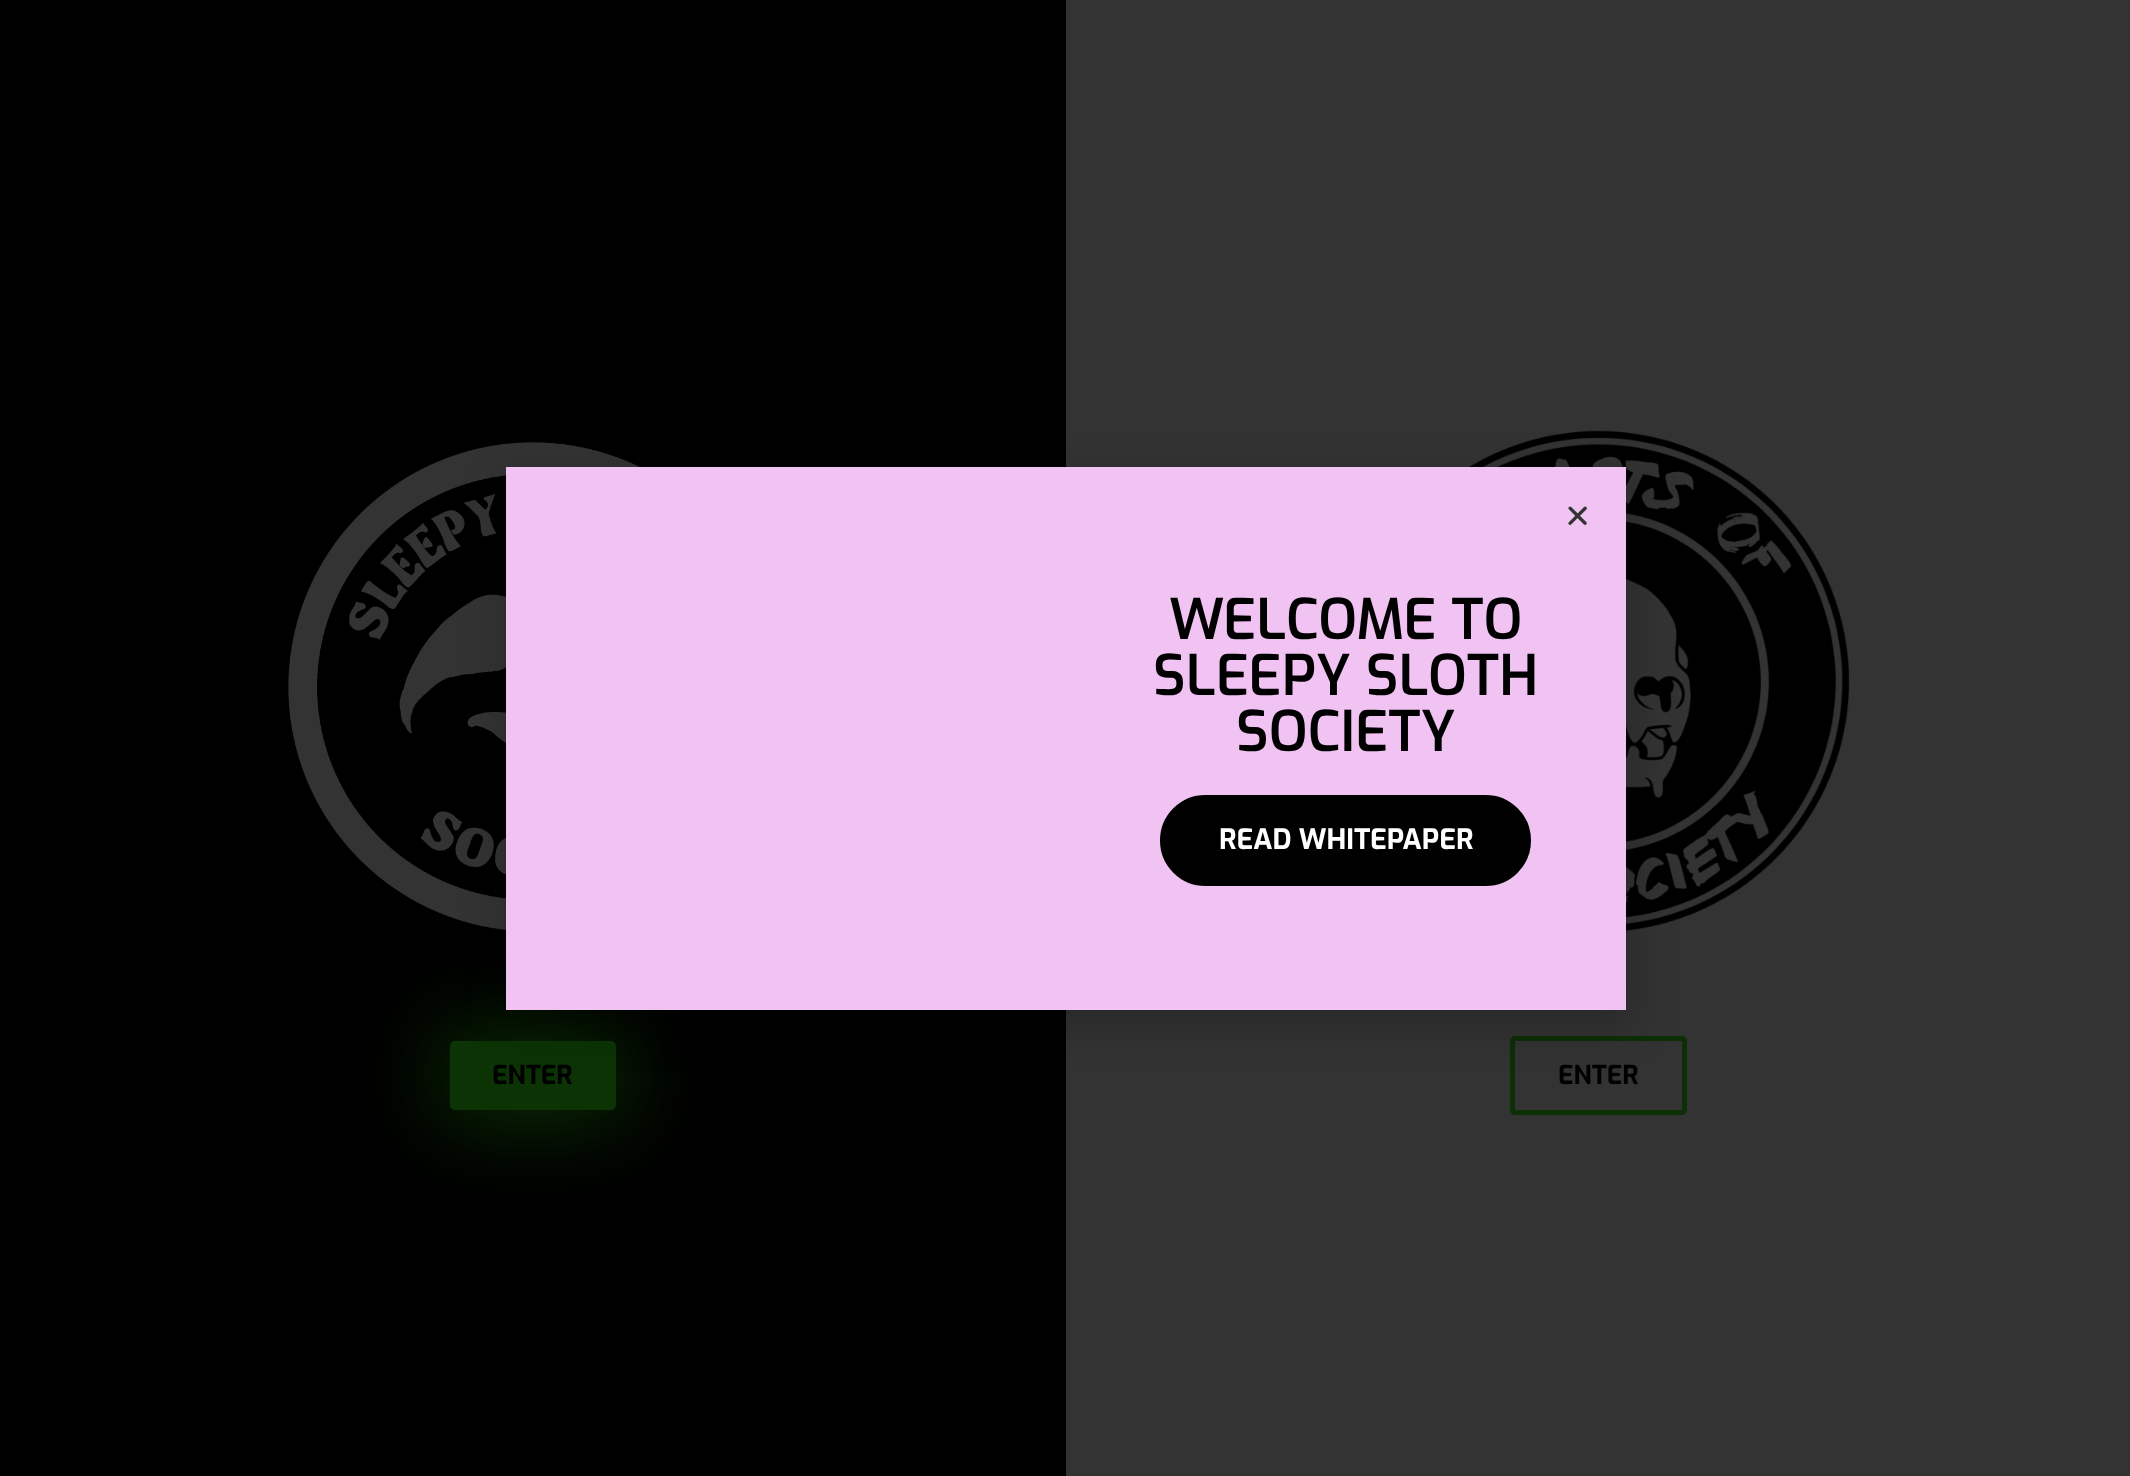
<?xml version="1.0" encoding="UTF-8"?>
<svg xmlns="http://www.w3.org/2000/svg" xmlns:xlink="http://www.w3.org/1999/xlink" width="2130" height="1476">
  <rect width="100%" height="100%" fill="#333333" />
  <rect width="1066" height="1476" fill="#000000" />
  <image x="288" y="442" width="352" height="488" xlink:href="image2.png" />
  <rect x="441" y="1033" width="184" height="85" rx="14" fill="#0b3304" filter="blur(44px)" />
  <rect x="450" y="1041" width="166" height="69" rx="5" fill="#0b3304" />
  <image x="1469" y="430" width="381" height="501" xlink:href="image3.png" />
  <rect x="1512.5" y="1038.5" width="172" height="74" rx="2.5" fill="none" stroke="#0c2f06" stroke-width="5" />
  <rect x="504" y="476" width="1131" height="553" fill="#000000" fill-opacity="0.2" filter="blur(20px)" />
  <rect x="506" y="467" width="1120" height="543" fill="#f0c3f2" />
  <image x="1568" y="506" width="19" height="19" xlink:href="image1.png" />
  <rect x="1162.5" y="797.5" width="366" height="86" rx="43" fill="#000000" stroke="#000000" stroke-width="5" />
  <text x="1169" y="639" style="font-family: Exo; font-size: 56px; font-weight: 600; fill: #000000">WELCOME TO</text>
  <text x="1153" y="695" style="font-family: Exo; font-size: 56px; font-weight: 600; fill: #000000">SLEEPY SLOTH</text>
  <text x="1236" y="751" style="font-family: Exo; font-size: 56px; font-weight: 600; fill: #000000">SOCIETY</text>
  <text x="1219" y="849" style="font-family: Exo; font-size: 28px; font-weight: bold; fill: #ffffff">READ WHITEPAPER</text>
  <text x="492" y="1084" style="font-family: Exo; font-size: 26px; font-weight: bold; fill: #000000">ENTER</text>
  <text x="1558" y="1084" style="font-family: Exo; font-size: 26px; font-weight: bold; fill: #000000">ENTER</text>
</svg>
